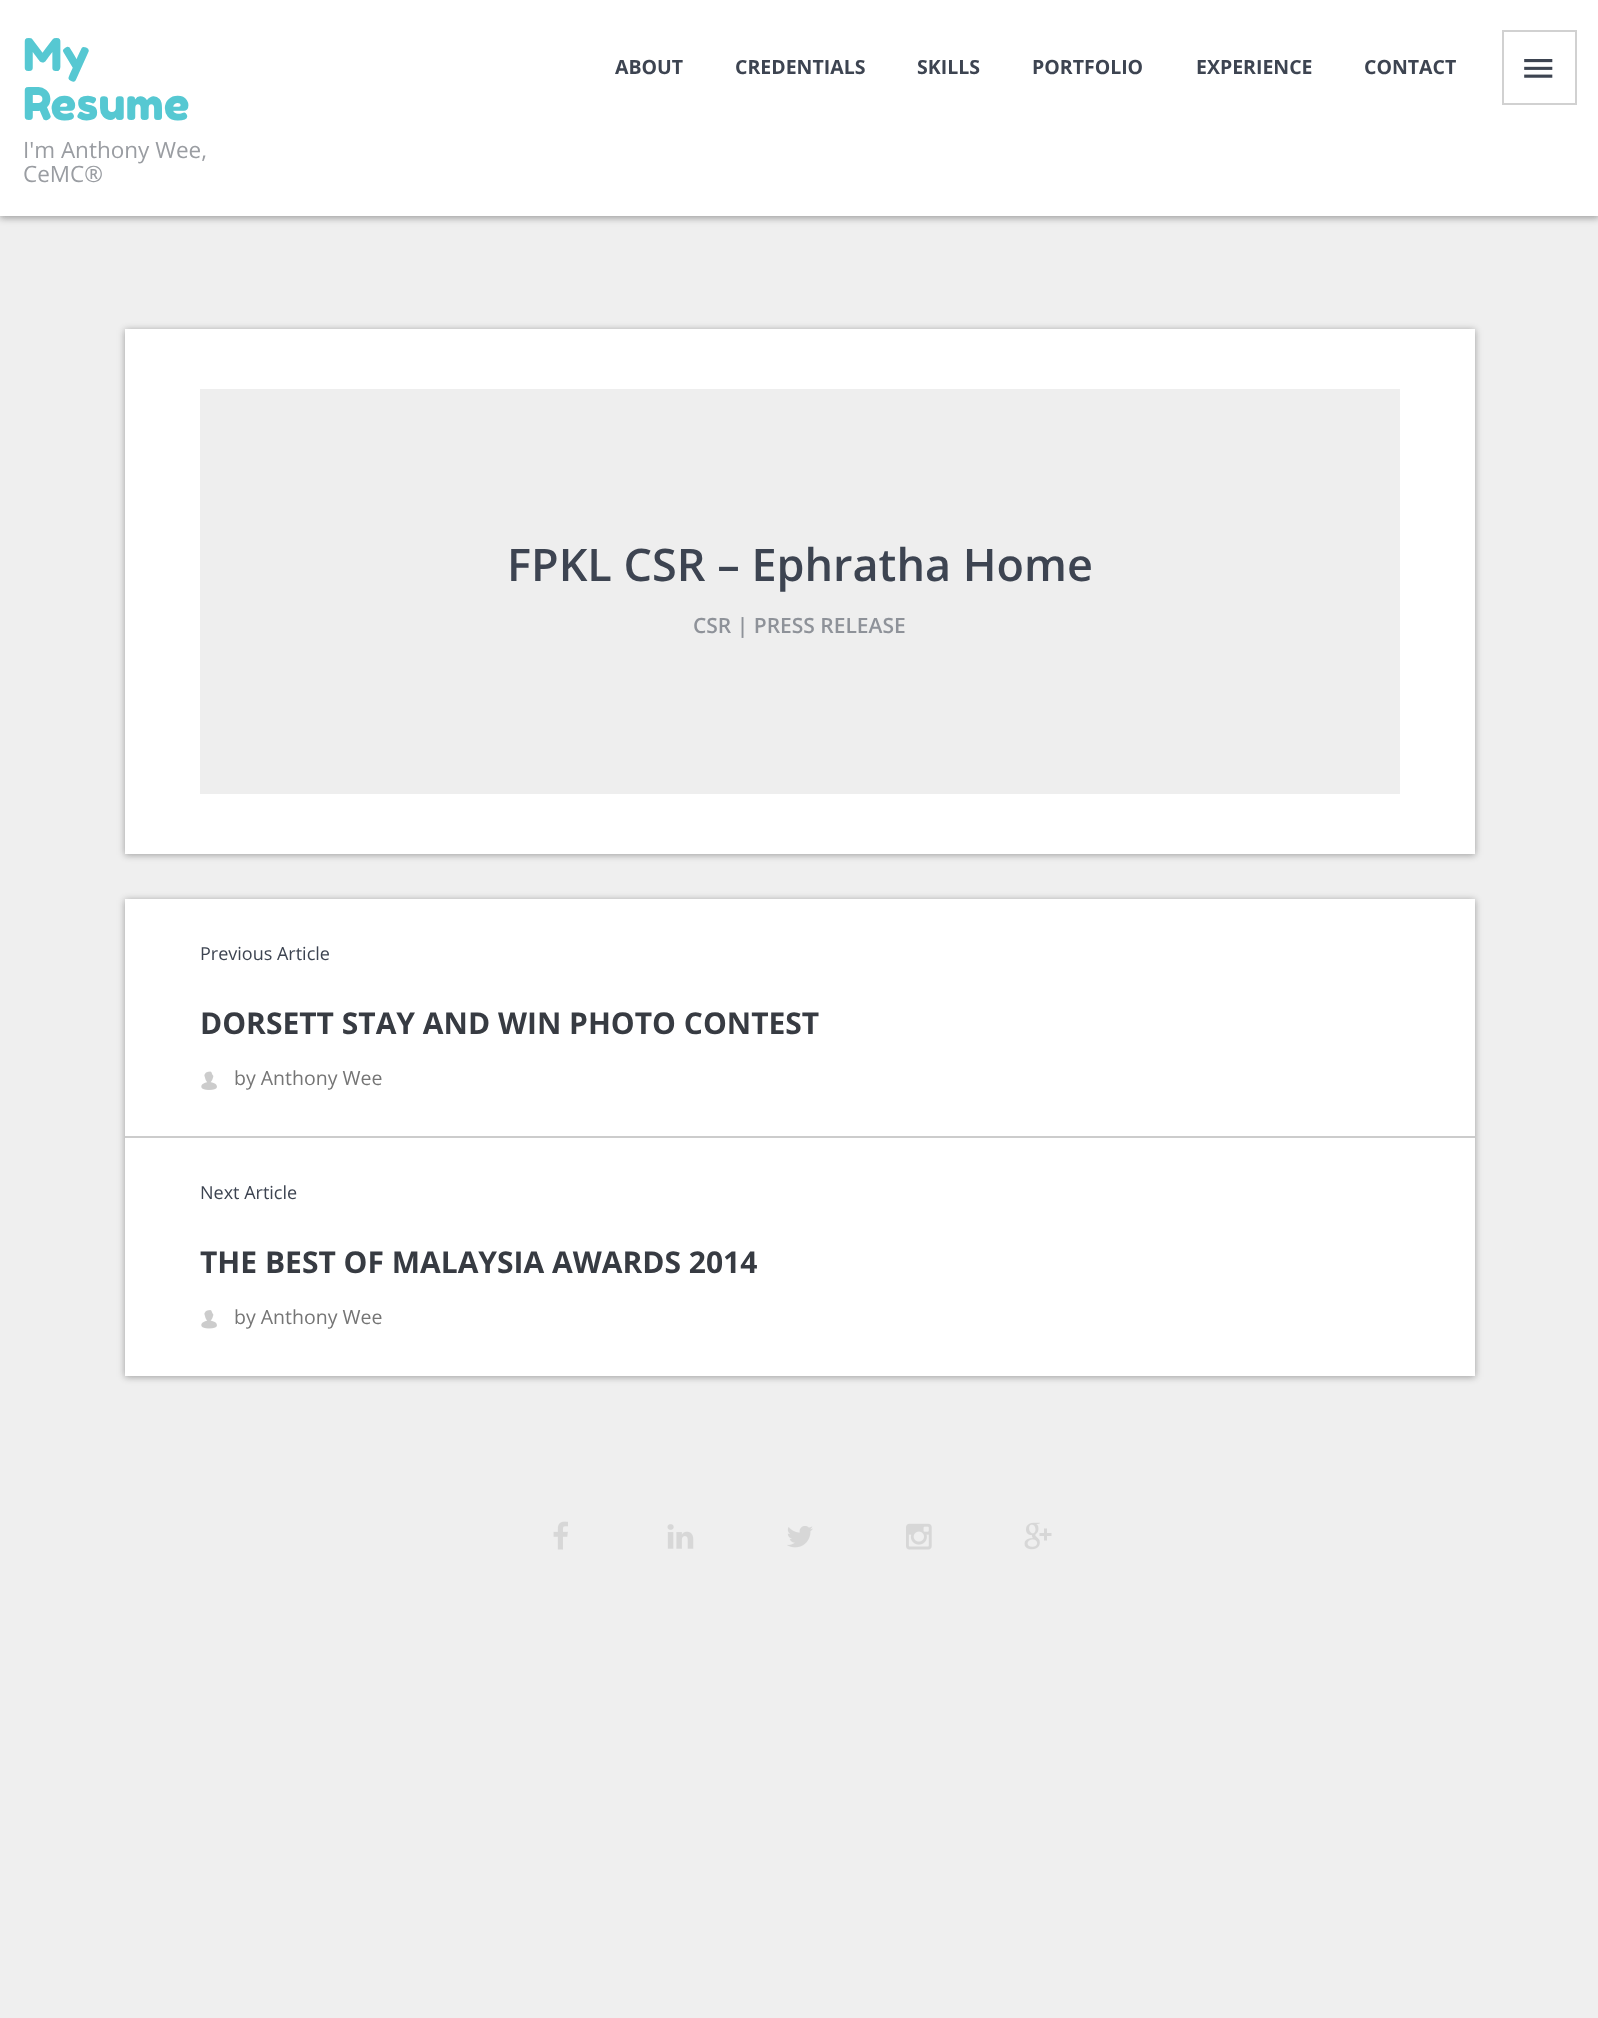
<?xml version="1.0" encoding="UTF-8"?>
<svg xmlns="http://www.w3.org/2000/svg" xmlns:xlink="http://www.w3.org/1999/xlink" width="1598" height="2018">
  <rect width="100%" height="100%" fill="#efefef" />
  <rect y="2" width="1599" height="216" fill="#000000" fill-opacity="0.24" filter="blur(3px)" />
  <rect y="2" width="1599" height="216" fill="#000000" fill-opacity="0.12" filter="blur(4.5px)" />
  <rect width="1598" height="216" fill="#ffffff" />
  <rect x="1503" y="31" width="73" height="73" fill="none" stroke="#d1d1d1" stroke-width="2" />
  <image x="1524" y="59" width="29" height="19" xlink:href="image1.png" />
  <rect x="125" y="330" width="1350" height="525" fill="#000000" fill-opacity="0.24" filter="blur(3px)" />
  <rect x="125" y="330" width="1350" height="525" fill="#000000" fill-opacity="0.12" filter="blur(4.5px)" />
  <rect x="125" y="329" width="1350" height="525" fill="#ffffff" />
  <rect x="200" y="389" width="1200" height="405" fill="#eeeeee" />
  <rect x="125" y="900" width="1350" height="477" fill="#000000" fill-opacity="0.24" filter="blur(3px)" />
  <rect x="125" y="900" width="1350" height="477" fill="#000000" fill-opacity="0.12" filter="blur(4.5px)" />
  <rect x="125" y="899" width="1350" height="477" fill="#ffffff" />
  <rect x="125" y="1136" width="1350" height="2" fill="#cccccc" />
  <image x="201" y="1071" width="16" height="19" xlink:href="image2.png" />
  <image x="201" y="1310" width="16" height="19" xlink:href="image3.png" />
  <image x="553" y="1521" width="15" height="29" xlink:href="image4.png" />
  <image x="667" y="1524" width="27" height="25" xlink:href="image5.png" />
  <image x="787" y="1526" width="26" height="22" xlink:href="image6.png" />
  <image x="906" y="1523" width="26" height="27" xlink:href="image7.png" />
  <image x="1024" y="1522" width="28" height="28" xlink:href="image8.png" />
  <text x="23" y="71" style="font-family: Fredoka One; font-size: 45px; fill: #56c8d2">My</text>
  <text x="23" y="120" style="font-family: Fredoka One; font-size: 45px; fill: #56c8d2">Resume</text>
  <text x="23" y="158" style="font-family: Open Sans; font-size: 22.5px; fill: #9a9da2">I'm Anthony Wee,</text>
  <text x="23" y="182" style="font-family: Open Sans; font-size: 22.5px; fill: #9a9da2">CeMC®</text>
  <text x="615" y="74" style="font-family: Open Sans; font-size: 19.5px; font-weight: bold; fill: #3d4451">ABOUT</text>
  <text x="735" y="74" style="font-family: Open Sans; font-size: 19.5px; font-weight: bold; fill: #3d4451">CREDENTIALS</text>
  <text x="917" y="74" style="font-family: Open Sans; font-size: 19.5px; font-weight: bold; fill: #3d4451">SKILLS</text>
  <text x="1032" y="74" style="font-family: Open Sans; font-size: 19.5px; font-weight: bold; fill: #3d4451">PORTFOLIO</text>
  <text x="1196" y="74" style="font-family: Open Sans; font-size: 19.5px; font-weight: bold; fill: #3d4451">EXPERIENCE</text>
  <text x="1364" y="74" style="font-family: Open Sans; font-size: 19.5px; font-weight: bold; fill: #3d4451">CONTACT</text>
  <text x="507" y="581" style="font-family: Open Sans; font-size: 45px; font-weight: 600; fill: #3d4451">FPKL CSR – Ephratha Home</text>
  <text x="693" y="633" style="font-family: Open Sans; font-size: 21px; font-weight: 600; fill: #8e9299">CSR | PRESS RELEASE</text>
  <text x="200" y="960" style="font-family: Open Sans; font-size: 18px; fill: #3d4451">Previous Article</text>
  <text x="200" y="1034" style="font-family: Open Sans; font-size: 30px; font-weight: bold; fill: #373b42">DORSETT STAY AND WIN PHOTO CONTEST</text>
  <text x="234" y="1085" style="font-family: Open Sans; font-size: 19.5px; fill: #757575">by Anthony Wee</text>
  <text x="200" y="1199" style="font-family: Open Sans; font-size: 18px; fill: #3d4451">Next Article</text>
  <text x="200" y="1273" style="font-family: Open Sans; font-size: 30px; font-weight: bold; fill: #373b42">THE BEST OF MALAYSIA AWARDS 2014</text>
  <text x="234" y="1324" style="font-family: Open Sans; font-size: 19.5px; fill: #757575">by Anthony Wee</text>
</svg>
